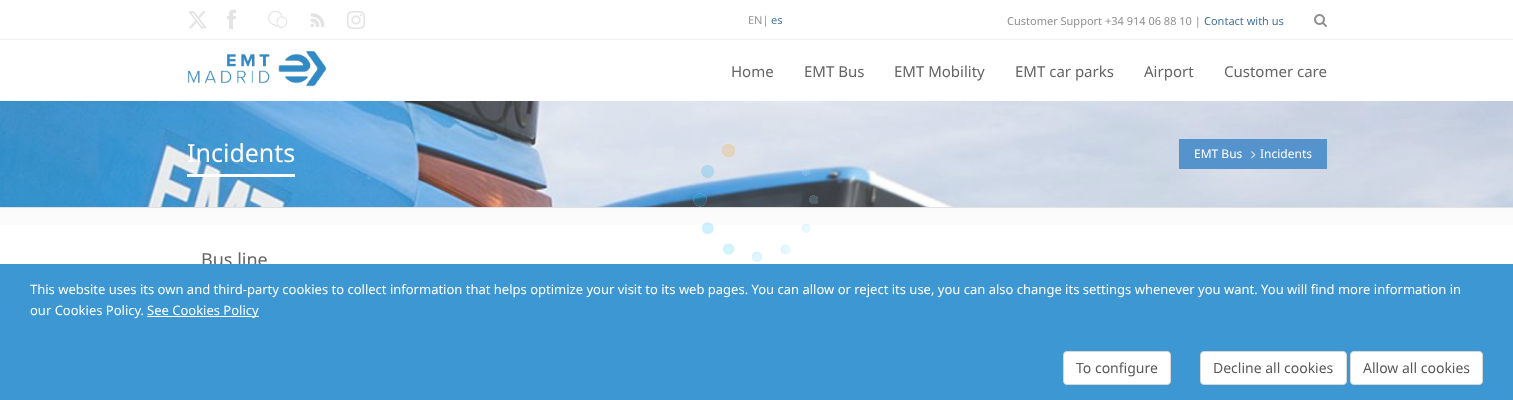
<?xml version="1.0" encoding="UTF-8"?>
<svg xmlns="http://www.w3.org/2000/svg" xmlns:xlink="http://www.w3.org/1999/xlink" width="1513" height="400">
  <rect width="100%" height="100%" fill="#ffffff" />
  <rect y="39" width="1513" height="1" fill="#f0f0f1" />
  <image x="188" y="11" width="19" height="18" xlink:href="image1.png" />
  <image x="227" y="9" width="9" height="20" xlink:href="image2.png" />
  <image x="268" y="10" width="20" height="19" xlink:href="image3.png" />
  <image x="310" y="13" width="15" height="15" xlink:href="image4.png" />
  <image x="347" y="11" width="18" height="18" xlink:href="image5.png" />
  <image x="1314" y="14" width="13" height="13" xlink:href="image6.png" />
  <image x="187" y="50" width="140" height="37" xlink:href="image7.png" />
  <image x="0" y="208" width="1513" height="17" xlink:href="image9.png" />
  <image x="0" y="101" width="1513" height="106" xlink:href="image10.png" />
  <rect y="207" width="1513" height="1" fill="#e1e1e1" />
  <image x="693" y="140" width="125" height="122" xlink:href="image8.png" />
  <rect x="187" y="174" width="108" height="3" fill="#ffffff" />
  <rect x="1179" y="139" width="148" height="30" fill="#5493cb" />
  <image x="1251" y="151" width="5" height="8" xlink:href="image11.png" />
  <text x="748" y="24" style="font-family: Noto Sans; font-size: 11px; fill: #909090">EN|</text>
  <text x="771" y="24" style="font-family: Noto Sans; font-size: 11px; fill: #4274a0">es</text>
  <text x="1007" y="25" style="font-family: Noto Sans; font-size: 11px; fill: #909090">Customer Support +34 914 06 88 10 |</text>
  <text x="1204" y="25" style="font-family: Noto Sans; font-size: 11px; fill: #4274a0">Contact with us</text>
  <text x="731" y="77" style="font-family: Noto Sans; font-size: 15px; fill: #656466">Home</text>
  <text x="804" y="77" style="font-family: Noto Sans; font-size: 15px; fill: #656466">EMT Bus</text>
  <text x="894" y="77" style="font-family: Noto Sans; font-size: 15px; fill: #656466">EMT Mobility</text>
  <text x="1015" y="77" style="font-family: Noto Sans; font-size: 15px; fill: #656466">EMT car parks</text>
  <text x="1144" y="77" style="font-family: Noto Sans; font-size: 15px; fill: #656466">Airport</text>
  <text x="1224" y="77" style="font-family: Noto Sans; font-size: 15px; fill: #656466">Customer care</text>
  <text x="187" y="162" style="font-family: Noto Sans; font-size: 25px; fill: #ffffff">Incidents</text>
  <text x="1194" y="158" style="font-family: Noto Sans; font-size: 12px; fill: #ffffff">EMT Bus</text>
  <text x="1260" y="158" style="font-family: Noto Sans; font-size: 12px; fill: #ffffff">Incidents</text>
  <text x="201" y="266" style="font-family: Noto Sans; font-size: 18px; fill: #656466">Bus line</text>
  <rect y="264" width="1513" height="136" fill="#3d97d3" />
  <text x="30" y="294" style="font-family: Noto Sans; font-size: 13px; fill: #ffffff">This website uses its own and third-party cookies to collect information that helps optimize your visit to its web pages. You can allow or reject its use, you can also change its settings whenever you want. You will find more information in</text>
  <text x="30" y="315" style="font-family: Noto Sans; font-size: 13px; fill: #ffffff">our Cookies Policy.</text>
  <rect x="147" y="316" width="112" height="1" fill="#ffffff" />
  <text x="147" y="315" style="font-family: Noto Sans; font-size: 13px; fill: #ffffff">See Cookies Policy</text>
  <rect x="1200.5" y="351.5" width="146" height="33" rx="3.5" fill="#ffffff" stroke="#d6d6d6" />
  <text x="1213" y="373" style="font-family: Noto Sans; font-size: 14px; fill: #5a5a5a">Decline all cookies</text>
  <rect x="1350.5" y="351.5" width="132" height="33" rx="3.5" fill="#ffffff" stroke="#d6d6d6" />
  <text x="1363" y="373" style="font-family: Noto Sans; font-size: 14px; fill: #5a5a5a">Allow all cookies</text>
  <rect x="1063.5" y="351.5" width="107" height="33" rx="3.5" fill="#ffffff" stroke="#d6d6d6" />
  <text x="1076" y="373" style="font-family: Noto Sans; font-size: 14px; fill: #5a5a5a">To configure</text>
</svg>
